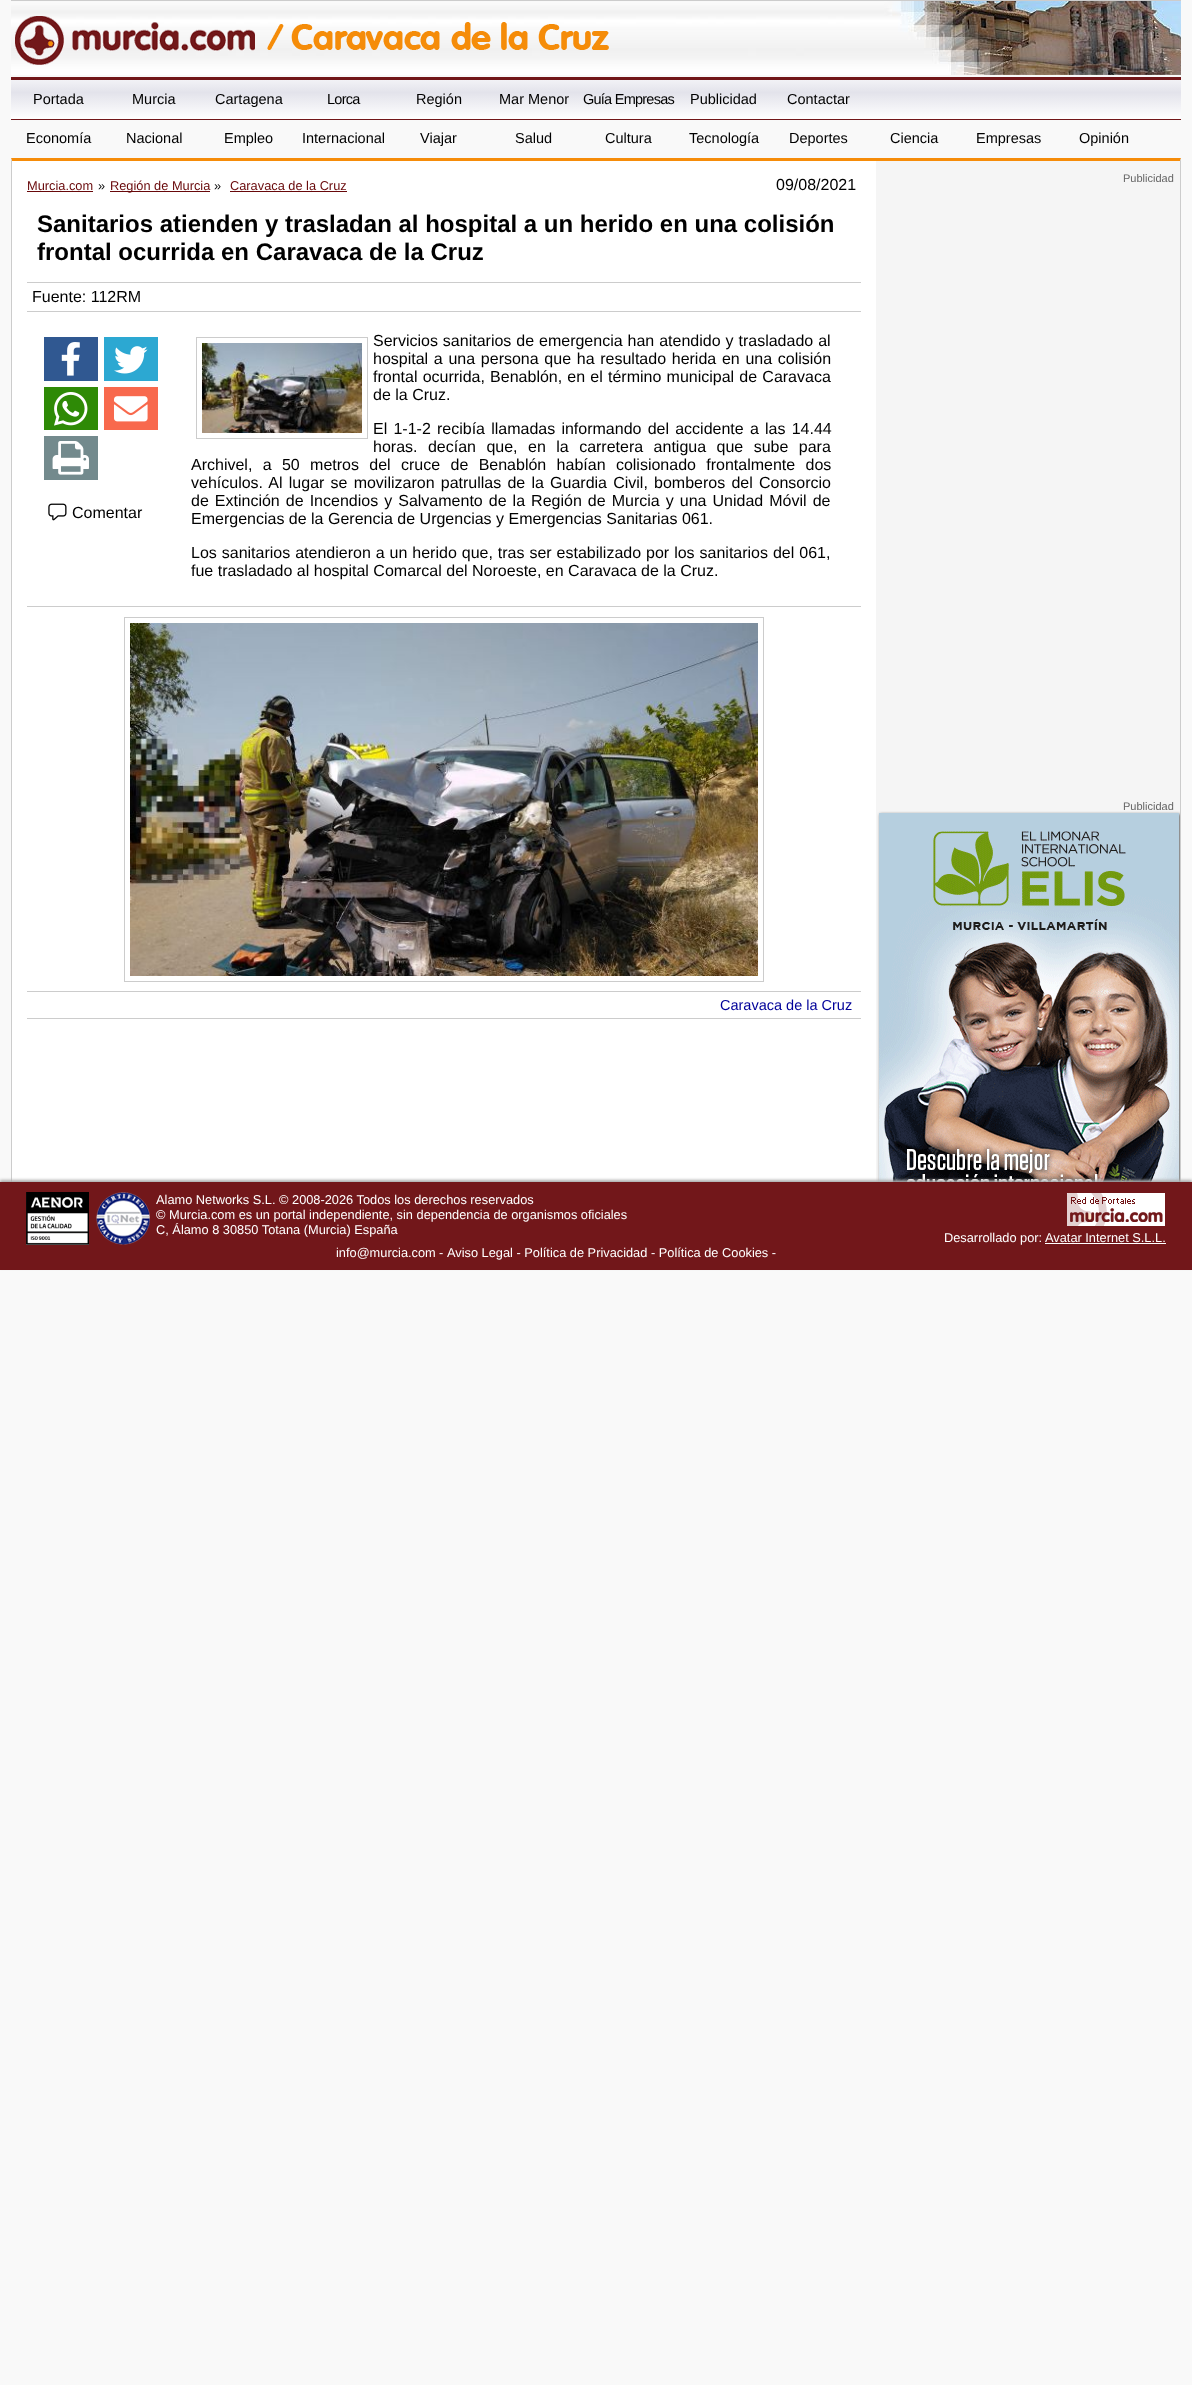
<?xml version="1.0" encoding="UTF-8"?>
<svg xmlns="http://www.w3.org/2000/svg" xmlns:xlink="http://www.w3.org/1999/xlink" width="1192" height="2385">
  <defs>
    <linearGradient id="g1" gradientUnits="userSpaceOnUse" x1="596" y1="80" x2="596" y2="119"><stop offset="0" stop-color="#f2f2f6" /><stop offset="0.32" stop-color="#e3e3eb" /><stop offset="1" stop-color="#ffffff" /></linearGradient>
    <clipPath id="clip1"><rect x="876" y="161" width="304" height="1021" /></clipPath>
  </defs>
  <rect width="100%" height="100%" fill="#f9f9f9" />
  <image x="11" y="1" width="1170" height="74" xlink:href="image1.png" />
  <image x="15" y="16" width="594" height="49" xlink:href="image2.png" />
  <rect x="11" width="1170" height="1" fill="#cccccc" />
  <rect x="11" y="77" width="1170" height="3" fill="#72171a" />
  <rect x="11" y="119" width="1170" height="1" fill="#72171a" />
  <rect x="11" y="80" width="1170" height="39" fill="url(#g1)" />
  <rect x="11" y="158" width="1170" height="1024" fill="#ffffff" />
  <path d="M 11 158 h 1170 l -1 3 h -1168 z" fill="#f68c09" />
  <path d="M 1181 158 v 1024 h -1 v -1021 z" fill="#cccccc" />
  <path d="M 11 1182 v -1024 l 1 3 v 1021 z" fill="#cccccc" />
  <rect x="27" y="191" width="66" height="1" fill="#68080a" />
  <rect x="110" y="191" width="100" height="1" fill="#68080a" />
  <rect x="230" y="191" width="117" height="1" fill="#68080a" />
  <rect x="27" y="282" width="834" height="1" fill="#cccccc" />
  <rect x="27" y="311" width="834" height="1" fill="#cccccc" />
  <rect x="27" y="606" width="834" height="1" fill="#cccccc" />
  <rect x="44" y="337" width="54" height="44" fill="#305891" />
  <image x="61" y="342" width="19" height="34" xlink:href="image3.png" />
  <rect x="104" y="337" width="54" height="44" fill="#2ca8d2" />
  <image x="114" y="346" width="34" height="28" xlink:href="image4.png" />
  <rect x="44" y="387" width="54" height="43" fill="#2e8a06" />
  <image x="54" y="392" width="34" height="34" xlink:href="image5.png" />
  <rect x="104" y="387" width="54" height="43" fill="#f8694d" />
  <image x="114" y="396" width="34" height="26" xlink:href="image6.png" />
  <rect x="44" y="436" width="54" height="44" fill="#738a8d" />
  <image x="52" y="441" width="37" height="34" xlink:href="image7.png" />
  <image x="48" y="503" width="19" height="18" xlink:href="image8.png" />
  <rect x="196.5" y="337.5" width="171" height="101" fill="none" stroke="#cccccc" />
  <image x="202" y="343" width="160" height="90" xlink:href="image9.png" />
  <rect x="124.5" y="617.5" width="639" height="364" fill="none" stroke="#cccccc" />
  <image x="130" y="623" width="628" height="353" xlink:href="image10.png" />
  <rect x="27" y="991" width="834" height="1" fill="#cccccc" />
  <rect x="27" y="1018" width="834" height="1" fill="#cccccc" />
  <rect x="876" y="161" width="304" height="1021" fill="#f5f5f5" />
  <g clip-path="url(#clip1)">
    <rect x="880" y="814" width="300" height="600" fill="#555555" filter="blur(1.5px)" />
  </g>
  <image x="879" y="813" width="300" height="369" xlink:href="image11.png" />
  <rect y="1180" width="1192" height="88" fill="#aaaaaa" filter="blur(1.5px)" />
  <rect y="1182" width="1192" height="88" fill="#72171a" />
  <image x="26" y="1192" width="124" height="53" xlink:href="image12.png" />
  <image x="1067" y="1193" width="98" height="33" xlink:href="image13.png" />
  <rect x="1045" y="1243" width="121" height="1" fill="#ffffff" />
  <text x="33" y="104" style="font-family: Liberation Sans; font-size: 14.5px; fill: #000000">Portada</text>
  <text x="132" y="104" style="font-family: Liberation Sans; font-size: 14.5px; fill: #000000">Murcia</text>
  <text x="215" y="104" style="font-family: Liberation Sans; font-size: 14.5px; fill: #000000">Cartagena</text>
  <text x="327" y="104" style="font-family: Liberation Sans; font-size: 14.5px; letter-spacing: -0.75px; fill: #000000">Lorca</text>
  <text x="416" y="104" style="font-family: Liberation Sans; font-size: 14.5px; fill: #000000">Región</text>
  <text x="499" y="104" style="font-family: Liberation Sans; font-size: 14.5px; fill: #000000">Mar Menor</text>
  <text x="583" y="104" style="font-family: Liberation Sans; font-size: 14.5px; letter-spacing: -0.75px; fill: #000000">Guía Empresas</text>
  <text x="690" y="104" style="font-family: Liberation Sans; font-size: 14.5px; fill: #000000">Publicidad</text>
  <text x="787" y="104" style="font-family: Liberation Sans; font-size: 14.5px; fill: #000000">Contactar</text>
  <text x="26" y="143" style="font-family: Liberation Sans; font-size: 14.5px; fill: #000000">Economía</text>
  <text x="126" y="143" style="font-family: Liberation Sans; font-size: 14.5px; fill: #000000">Nacional</text>
  <text x="224" y="143" style="font-family: Liberation Sans; font-size: 14.5px; fill: #000000">Empleo</text>
  <text x="302" y="143" style="font-family: Liberation Sans; font-size: 14.5px; fill: #000000">Internacional</text>
  <text x="420" y="143" style="font-family: Liberation Sans; font-size: 14.5px; fill: #000000">Viajar</text>
  <text x="515" y="143" style="font-family: Liberation Sans; font-size: 14.5px; fill: #000000">Salud</text>
  <text x="605" y="143" style="font-family: Liberation Sans; font-size: 14.5px; fill: #000000">Cultura</text>
  <text x="689" y="143" style="font-family: Liberation Sans; font-size: 14.5px; fill: #000000">Tecnología</text>
  <text x="789" y="143" style="font-family: Liberation Sans; font-size: 14.5px; fill: #000000">Deportes</text>
  <text x="890" y="143" style="font-family: Liberation Sans; font-size: 14.5px; fill: #000000">Ciencia</text>
  <text x="976" y="143" style="font-family: Liberation Sans; font-size: 14.5px; fill: #000000">Empresas</text>
  <text x="1079" y="143" style="font-family: Liberation Sans; font-size: 14.5px; fill: #000000">Opinión</text>
  <text x="27" y="190" style="font-family: Liberation Sans; font-size: 12.8px; fill: #68080a">Murcia.com</text>
  <text x="98" y="190" style="font-family: Liberation Sans; font-size: 12.8px; fill: #000000">»</text>
  <text x="110" y="190" style="font-family: Liberation Sans; font-size: 12.8px; fill: #68080a">Región de Murcia</text>
  <text x="214" y="190" style="font-family: Liberation Sans; font-size: 12.8px; fill: #000000">»</text>
  <text x="230" y="190" style="font-family: Liberation Sans; font-size: 12.8px; fill: #68080a">Caravaca de la Cruz</text>
  <text x="776" y="190" style="font-family: Liberation Sans; font-size: 16px; fill: #000000">09/08/2021</text>
  <text x="37" y="232" style="font-family: Liberation Sans; font-size: 24px; font-weight: bold; fill: #000000">Sanitarios atienden y trasladan al hospital a un herido en una colisión</text>
  <text x="37" y="260" style="font-family: Liberation Sans; font-size: 24px; font-weight: bold; fill: #000000">frontal ocurrida en Caravaca de la Cruz</text>
  <text x="32" y="302" style="font-family: Liberation Sans; font-size: 16px; fill: #000000">Fuente: 112RM</text>
  <text x="72" y="518" style="font-family: Liberation Sans; font-size: 16px; fill: #000000">Comentar</text>
  <text x="373" y="346" word-spacing="0.5" style="font-family: Liberation Sans; font-size: 16px; fill: #000000">Servicios sanitarios de emergencia han atendido y trasladado al</text>
  <text x="373" y="364" word-spacing="1.25" style="font-family: Liberation Sans; font-size: 16px; fill: #000000">hospital a una persona que ha resultado herida en una colisión</text>
  <text x="373" y="382" word-spacing="0.75" style="font-family: Liberation Sans; font-size: 16px; fill: #000000">frontal ocurrida, Benablón, en el término municipal de Caravaca</text>
  <text x="373" y="400" style="font-family: Liberation Sans; font-size: 16px; fill: #000000">de la Cruz.</text>
  <text x="373" y="434" word-spacing="1.75" style="font-family: Liberation Sans; font-size: 16px; fill: #000000">El 1-1-2 recibía llamadas informando del accidente a las 14.44</text>
  <text x="373" y="452" word-spacing="6" style="font-family: Liberation Sans; font-size: 16px; fill: #000000">horas. decían que, en la carretera antigua que sube para</text>
  <text x="191" y="470" word-spacing="5.9" style="font-family: Liberation Sans; font-size: 16px; fill: #000000">Archivel, a 50 metros del cruce de Benablón habían colisionado frontalmente dos</text>
  <text x="191" y="488" word-spacing="1.75" style="font-family: Liberation Sans; font-size: 16px; fill: #000000">vehículos. Al lugar se movilizaron patrullas de la Guardia Civil, bomberos del Consorcio</text>
  <text x="191" y="506" word-spacing="1.6" style="font-family: Liberation Sans; font-size: 16px; fill: #000000">de Extinción de Incendios y Salvamento de la Región de Murcia y una Unidad Móvil de</text>
  <text x="191" y="524" style="font-family: Liberation Sans; font-size: 16px; fill: #000000">Emergencias de la Gerencia de Urgencias y Emergencias Sanitarias 061.</text>
  <text x="191" y="558" word-spacing="0.5" style="font-family: Liberation Sans; font-size: 16px; fill: #000000">Los sanitarios atendieron a un herido que, tras ser estabilizado por los sanitarios del 061,</text>
  <text x="191" y="576" style="font-family: Liberation Sans; font-size: 16px; fill: #000000">fue trasladado al hospital Comarcal del Noroeste, en Caravaca de la Cruz.</text>
  <text x="720" y="1010" style="font-family: Liberation Sans; font-size: 14.5px; fill: #000099">Caravaca de la Cruz</text>
  <text x="1123" y="182" style="font-family: Liberation Sans; font-size: 11px; fill: #666666">Publicidad</text>
  <text x="1123" y="810" style="font-family: Liberation Sans; font-size: 11px; fill: #666666">Publicidad</text>
  <text x="156" y="1204" style="font-family: Liberation Sans; font-size: 12.8px; fill: #ffffff">Alamo Networks S.L. © 2008-2026 Todos los derechos reservados</text>
  <text x="156" y="1219" style="font-family: Liberation Sans; font-size: 12.8px; fill: #ffffff">© Murcia.com es un portal independiente, sin dependencia de organismos oficiales</text>
  <text x="156" y="1234" style="font-family: Liberation Sans; font-size: 12.8px; fill: #ffffff">C, Álamo 8 30850 Totana (Murcia) España</text>
  <text x="336" y="1257" style="font-family: Liberation Sans; font-size: 12.8px; fill: #ffffff">info@murcia.com</text>
  <text x="439" y="1257" style="font-family: Liberation Sans; font-size: 12.8px; fill: #ffffff">-</text>
  <text x="447" y="1257" style="font-family: Liberation Sans; font-size: 12.8px; fill: #ffffff">Aviso Legal - Política de Privacidad - Política de Cookies -</text>
  <text x="944" y="1242" style="font-family: Liberation Sans; font-size: 12.8px; fill: #ffffff">Desarrollado por:</text>
  <text x="1045" y="1242" style="font-family: Liberation Sans; font-size: 12.8px; fill: #ffffff">Avatar Internet S.L.L.</text>
</svg>
